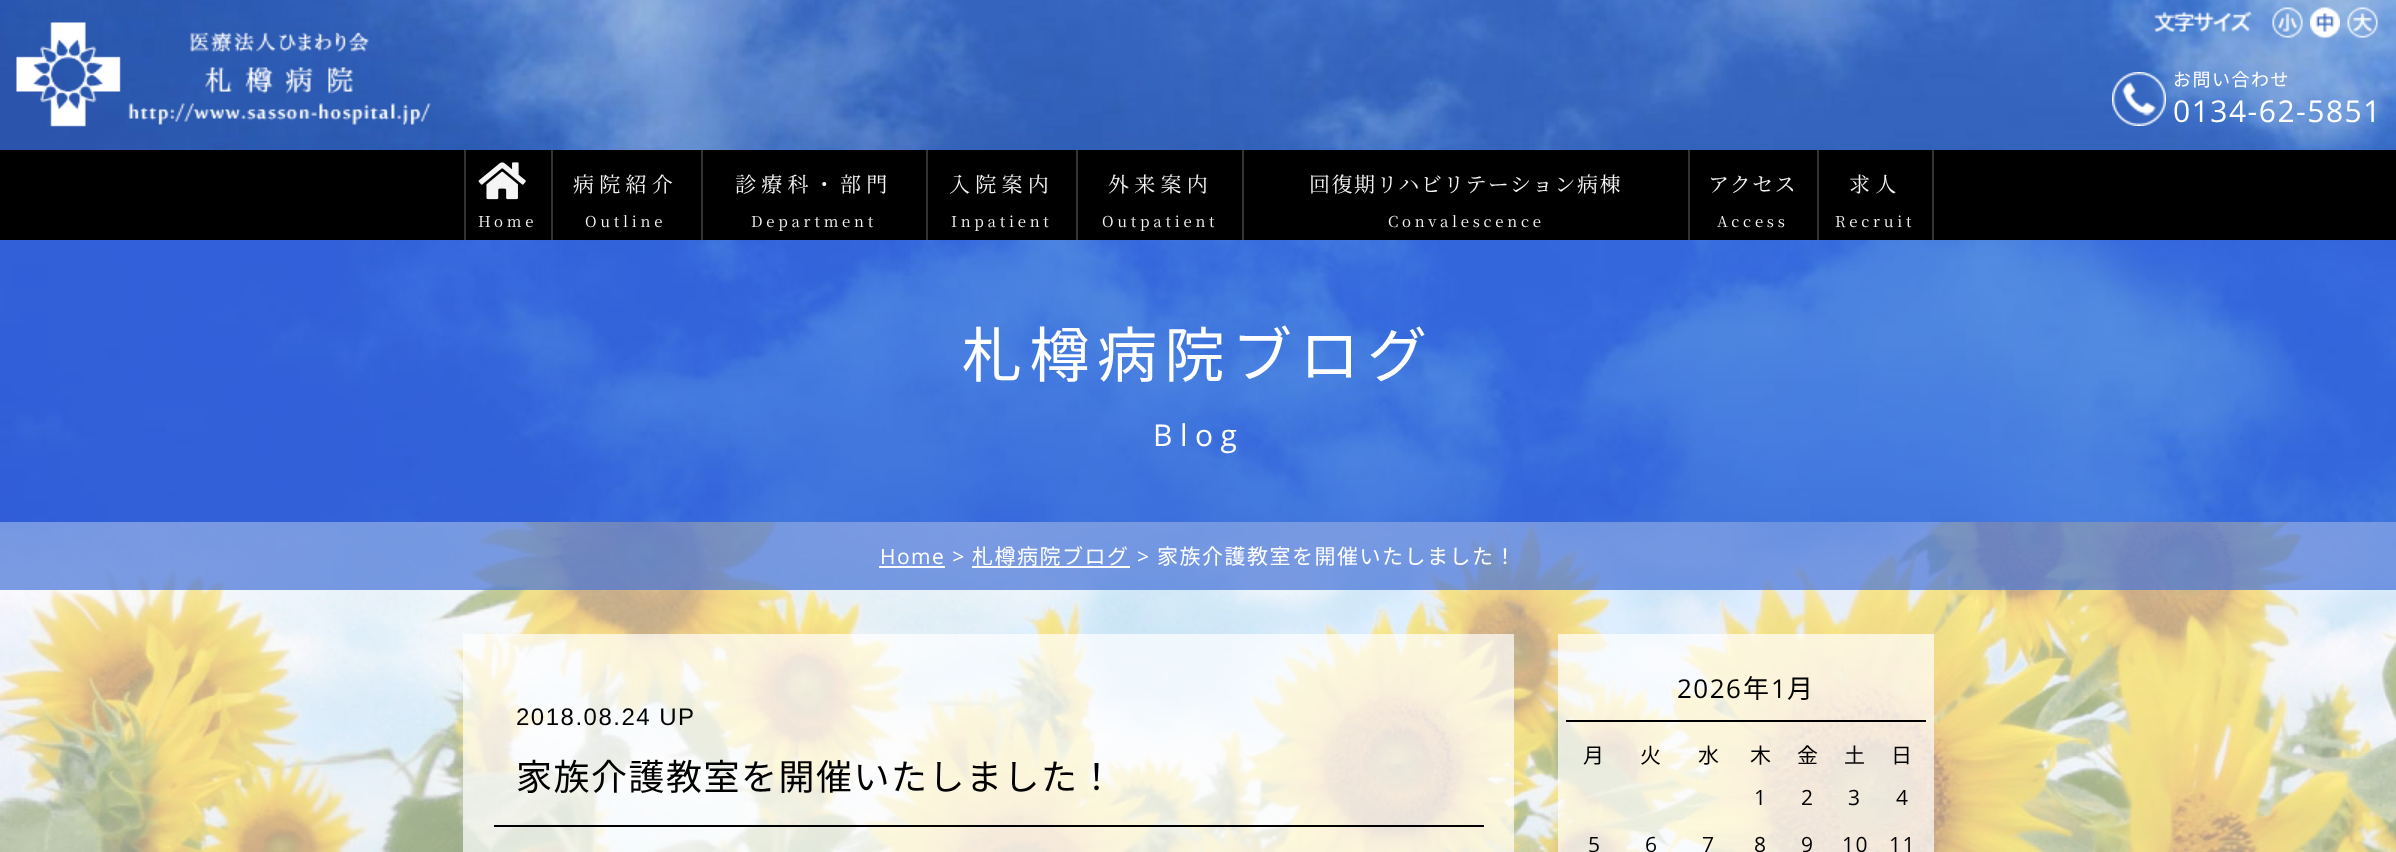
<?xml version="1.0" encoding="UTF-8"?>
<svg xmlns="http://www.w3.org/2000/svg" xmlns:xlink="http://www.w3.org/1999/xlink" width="2396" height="852">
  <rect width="100%" height="100%" fill="#ffffff" />
  <image x="0" y="522" width="2396" height="330" xlink:href="image1.png" />
  <image x="0" y="0" width="2396" height="150" xlink:href="image2.png" />
  <image x="16" y="22" width="415" height="105" xlink:href="image3.png" />
  <image x="2154" y="10" width="98" height="22" xlink:href="image4.png" />
  <image x="2272" y="7" width="31" height="31" xlink:href="image5.png" />
  <image x="2310" y="7" width="30" height="31" xlink:href="image6.png" />
  <image x="2347" y="7" width="31" height="31" xlink:href="image7.png" />
  <image x="2112" y="72" width="54" height="54" xlink:href="image8.png" />
  <rect y="150" width="2396" height="90" fill="#000000" />
  <rect x="551" y="150" width="2" height="90" fill="#333333" />
  <rect x="464" y="150" width="2" height="90" fill="#333333" />
  <image x="478" y="162" width="48" height="38" xlink:href="image9.png" />
  <rect x="701" y="150" width="2" height="90" fill="#333333" />
  <rect x="926" y="150" width="2" height="90" fill="#333333" />
  <rect x="1076" y="150" width="2" height="90" fill="#333333" />
  <rect x="1242" y="150" width="2" height="90" fill="#333333" />
  <rect x="1688" y="150" width="2" height="90" fill="#333333" />
  <rect x="1817" y="150" width="2" height="90" fill="#333333" />
  <rect x="1932" y="150" width="2" height="90" fill="#333333" />
  <image x="0" y="240" width="2396" height="282" xlink:href="image10.png" />
  <rect y="522" width="2396" height="68" fill="#4472d7" fill-opacity="0.7" />
  <rect x="879" y="566" width="66" height="2" fill="#ffffff" />
  <rect x="972" y="566" width="158" height="2" fill="#ffffff" />
  <rect x="463" y="634" width="1051" height="218" fill="#ffffff" fill-opacity="0.7" />
  <rect x="494" y="825" width="990" height="2" fill="#000000" />
  <rect x="1558" y="634" width="376" height="218" fill="#ffffff" fill-opacity="0.7" />
  <rect x="1566" y="720" width="360" height="2" fill="#000000" />
  <text x="2173" y="86" style="font-family: Noto Sans JP; font-size: 18px; letter-spacing: 1.5px; fill: #ffffff">お問い合わせ</text>
  <text x="2173" y="122" style="font-family: Open Sans; font-size: 30px; letter-spacing: 1.5px; fill: #ffffff">0134-62-5851</text>
  <text x="478" y="227" style="font-family: Noto Serif JP; font-size: 15px; letter-spacing: 3.75px; fill: #f5f5f5">Home</text>
  <text x="573" y="192" style="font-family: Noto Serif JP; font-size: 21px; letter-spacing: 5.25px; fill: #f5f5f5">病院紹介</text>
  <text x="585" y="227" style="font-family: Noto Serif JP; font-size: 15px; letter-spacing: 3.75px; fill: #f5f5f5">Outline</text>
  <text x="735" y="192" style="font-family: Noto Serif JP; font-size: 21px; letter-spacing: 5.25px; fill: #f5f5f5">診療科・部門</text>
  <text x="751" y="227" style="font-family: Noto Serif JP; font-size: 15px; letter-spacing: 3.75px; fill: #f5f5f5">Department</text>
  <text x="949" y="192" style="font-family: Noto Serif JP; font-size: 21px; letter-spacing: 5.25px; fill: #f5f5f5">入院案内</text>
  <text x="951" y="227" style="font-family: Noto Serif JP; font-size: 15px; letter-spacing: 3.75px; fill: #f5f5f5">Inpatient</text>
  <text x="1108" y="192" style="font-family: Noto Serif JP; font-size: 21px; letter-spacing: 5.25px; fill: #f5f5f5">外来案内</text>
  <text x="1102" y="227" style="font-family: Noto Serif JP; font-size: 15px; letter-spacing: 3.75px; fill: #f5f5f5">Outpatient</text>
  <text x="1309" y="192" style="font-family: Noto Serif JP; font-size: 21px; letter-spacing: 1.5px; fill: #f5f5f5">回復期リハビリテーション病棟</text>
  <text x="1388" y="227" style="font-family: Noto Serif JP; font-size: 15px; letter-spacing: 3.75px; fill: #f5f5f5">Convalescence</text>
  <text x="1708" y="192" style="font-family: Noto Serif JP; font-size: 21px; letter-spacing: 1.5px; fill: #f5f5f5">アクセス</text>
  <text x="1717" y="227" style="font-family: Noto Serif JP; font-size: 15px; letter-spacing: 3.75px; fill: #f5f5f5">Access</text>
  <text x="1849" y="192" style="font-family: Noto Serif JP; font-size: 21px; letter-spacing: 5.25px; fill: #f5f5f5">求人</text>
  <text x="1835" y="227" style="font-family: Noto Serif JP; font-size: 15px; letter-spacing: 3.75px; fill: #f5f5f5">Recruit</text>
  <text x="962" y="377" style="font-family: Noto Sans JP; font-size: 60px; letter-spacing: 7.5px; fill: #ffffff">札樽病院ブログ</text>
  <text x="1153" y="446" style="font-family: Open Sans; font-size: 30px; letter-spacing: 7.5px; fill: #ffffff">Blog</text>
  <text x="880" y="564" style="font-family: Open Sans; font-size: 21px; letter-spacing: 1.5px; fill: #ffffff">Home &gt;</text>
  <text x="972" y="564" style="font-family: Noto Sans JP; font-size: 21px; letter-spacing: 1.5px; fill: #ffffff">札樽病院ブログ</text>
  <text x="1137" y="564" style="font-family: Open Sans; font-size: 21px; letter-spacing: 1.5px; fill: #ffffff">&gt;</text>
  <text x="1157" y="564" style="font-family: Noto Sans JP; font-size: 21px; letter-spacing: 1.5px; fill: #ffffff">家族介護教室を開催いたしました！</text>
  <text x="516" y="725" style="font-family: Liberation Sans; font-size: 24px; letter-spacing: 1.5px; fill: #000000">2018.08.24 UP</text>
  <text x="516" y="790" style="font-family: Noto Sans JP; font-size: 36px; letter-spacing: 1.5px; fill: #000000">家族介護教室を開催いたしました！</text>
  <text x="1677" y="698" style="font-family: Open Sans; font-size: 26px; letter-spacing: 1.5px; fill: #000000">2026</text>
  <text x="1743" y="698" style="font-family: Noto Sans JP; font-size: 26px; letter-spacing: 1.5px; fill: #000000">年</text>
  <text x="1771" y="698" style="font-family: Open Sans; font-size: 26px; letter-spacing: 1.5px; fill: #000000">1</text>
  <text x="1787" y="698" style="font-family: Noto Sans JP; font-size: 26px; letter-spacing: 1.5px; fill: #000000">月</text>
  <text x="1583" y="763" style="font-family: Noto Sans JP; font-size: 21px; letter-spacing: 1.5px; fill: #000000">月</text>
  <text x="1640" y="763" style="font-family: Noto Sans JP; font-size: 21px; letter-spacing: 1.5px; fill: #000000">火</text>
  <text x="1698" y="763" style="font-family: Noto Sans JP; font-size: 21px; letter-spacing: 1.5px; fill: #000000">水</text>
  <text x="1750" y="763" style="font-family: Noto Sans JP; font-size: 21px; letter-spacing: 1.5px; fill: #000000">木</text>
  <text x="1797" y="763" style="font-family: Noto Sans JP; font-size: 21px; letter-spacing: 1.5px; fill: #000000">金</text>
  <text x="1844" y="763" style="font-family: Noto Sans JP; font-size: 21px; letter-spacing: 1.5px; fill: #000000">土</text>
  <text x="1891" y="763" style="font-family: Noto Sans JP; font-size: 21px; letter-spacing: 1.5px; fill: #000000">日</text>
  <text x="1754" y="805" style="font-family: Open Sans; font-size: 21px; letter-spacing: 1.5px; fill: #000000">1</text>
  <text x="1801" y="805" style="font-family: Open Sans; font-size: 21px; letter-spacing: 1.5px; fill: #000000">2</text>
  <text x="1848" y="805" style="font-family: Open Sans; font-size: 21px; letter-spacing: 1.5px; fill: #000000">3</text>
  <text x="1896" y="805" style="font-family: Open Sans; font-size: 21px; letter-spacing: 1.5px; fill: #000000">4</text>
  <text x="1588" y="852" style="font-family: Open Sans; font-size: 21px; letter-spacing: 1.5px; fill: #000000">5</text>
  <text x="1645" y="852" style="font-family: Open Sans; font-size: 21px; letter-spacing: 1.5px; fill: #000000">6</text>
  <text x="1702" y="852" style="font-family: Open Sans; font-size: 21px; letter-spacing: 1.5px; fill: #000000">7</text>
  <text x="1754" y="852" style="font-family: Open Sans; font-size: 21px; letter-spacing: 1.5px; fill: #000000">8</text>
  <text x="1801" y="852" style="font-family: Open Sans; font-size: 21px; letter-spacing: 1.5px; fill: #000000">9</text>
  <text x="1842" y="852" style="font-family: Open Sans; font-size: 21px; letter-spacing: 1.5px; fill: #000000">10</text>
  <text x="1889" y="852" style="font-family: Open Sans; font-size: 21px; letter-spacing: 1.5px; fill: #000000">11</text>
</svg>
